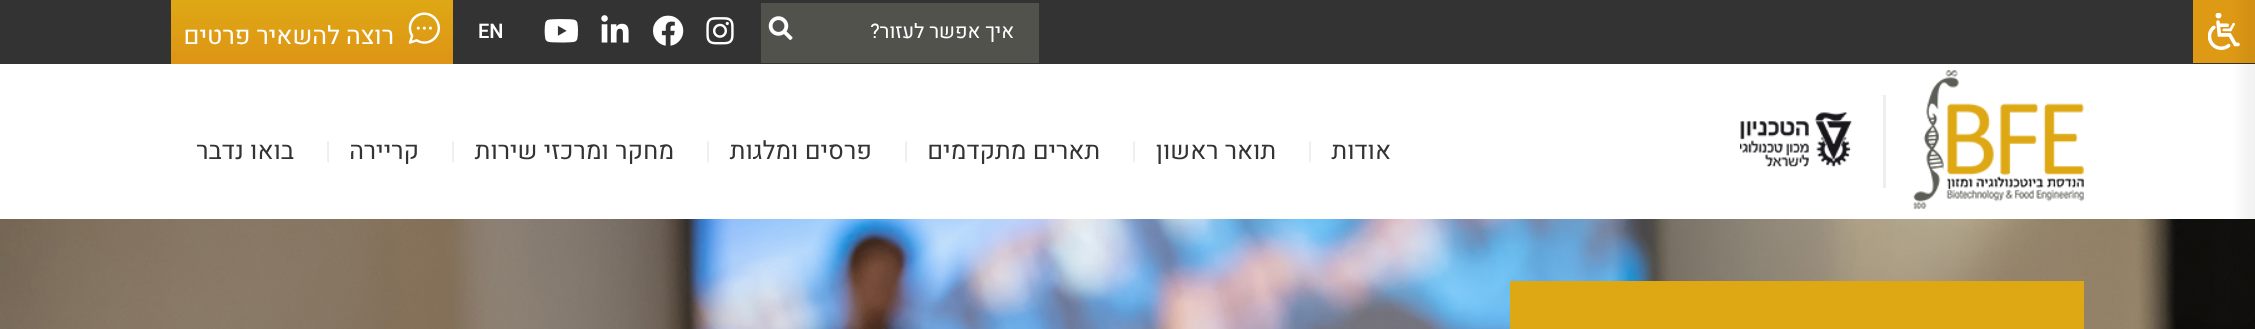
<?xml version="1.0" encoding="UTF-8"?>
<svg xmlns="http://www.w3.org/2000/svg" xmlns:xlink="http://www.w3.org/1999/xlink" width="2255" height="329">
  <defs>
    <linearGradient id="g1" gradientUnits="userSpaceOnUse" x1="312" y1="0" x2="312" y2="64"><stop offset="0" stop-color="#dea815" /><stop offset="1" stop-color="#de9415" /></linearGradient>
  </defs>
  <rect width="100%" height="100%" fill="#ffffff" />
  <rect width="2255" height="64" fill="#333333" />
  <rect x="2193" width="62" height="63" fill="#de9915" />
  <image x="2208" y="13" width="32" height="37" xlink:href="image1.png" />
  <image x="0" y="219" width="2255" height="110" xlink:href="image10.png" />
  <rect x="2241" y="-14" width="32" height="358" fill="#000000" fill-opacity="0.05" filter="blur(6px)" />
  <rect x="761" y="3" width="278" height="60" fill="#52524d" />
  <image x="768" y="16" width="25" height="24" xlink:href="image2.png" />
  <image x="706" y="17" width="28" height="28" xlink:href="image3.png" />
  <image x="653" y="15" width="31" height="31" xlink:href="image4.png" />
  <image x="601" y="15" width="28" height="28" xlink:href="image5.png" />
  <image x="544" y="19" width="34" height="24" xlink:href="image6.png" />
  <rect x="171" width="282" height="64" fill="url(#g1)" />
  <image x="408" y="12" width="32" height="32" xlink:href="image7.png" />
  <image x="1913" y="70" width="171" height="139" xlink:href="image8.png" />
  <rect x="1883" y="95" width="3" height="93" fill="#eeeeee" />
  <image x="1740" y="112" width="112" height="55" xlink:href="image9.png" />
  <rect x="1510" y="281" width="574" height="48" fill="#dea815" />
  <text x="1014" y="38" style="font-family: Heebo; font-size: 20px; direction: rtl; fill: #ffffff">איך אפשר לעזור?</text>
  <text x="478" y="38" style="font-family: Heebo; font-size: 20px; font-weight: 500; fill: #ffffff">EN</text>
  <text x="394" y="44" style="font-family: Heebo; font-size: 25px; direction: rtl; fill: #ffffff">רוצה להשאיר פרטים</text>
  <text x="1391" y="159" style="font-family: Heebo; font-size: 25px; direction: rtl; fill: #333333">אודות</text>
  <text x="1307" y="159" style="font-family: Heebo; font-size: 25px; fill: #eeeeee">|</text>
  <text x="1276" y="159" style="font-family: Heebo; font-size: 25px; direction: rtl; fill: #333333">תואר ראשון</text>
  <text x="1131" y="159" style="font-family: Heebo; font-size: 25px; fill: #eeeeee">|</text>
  <text x="1100" y="159" style="font-family: Heebo; font-size: 25px; direction: rtl; fill: #333333">תארים מתקדמים</text>
  <text x="903" y="159" style="font-family: Heebo; font-size: 25px; fill: #eeeeee">|</text>
  <text x="872" y="159" style="font-family: Heebo; font-size: 25px; direction: rtl; fill: #333333">פרסים ומלגות</text>
  <text x="705" y="159" style="font-family: Heebo; font-size: 25px; fill: #eeeeee">|</text>
  <text x="674" y="159" style="font-family: Heebo; font-size: 25px; direction: rtl; fill: #333333">מחקר ומרכזי שירות</text>
  <text x="450" y="159" style="font-family: Heebo; font-size: 25px; fill: #eeeeee">|</text>
  <text x="419" y="159" style="font-family: Heebo; font-size: 25px; direction: rtl; fill: #333333">קריירה</text>
  <text x="325" y="159" style="font-family: Heebo; font-size: 25px; fill: #eeeeee">|</text>
  <text x="294" y="159" style="font-family: Heebo; font-size: 25px; direction: rtl; fill: #333333">בואו נדבר</text>
</svg>
